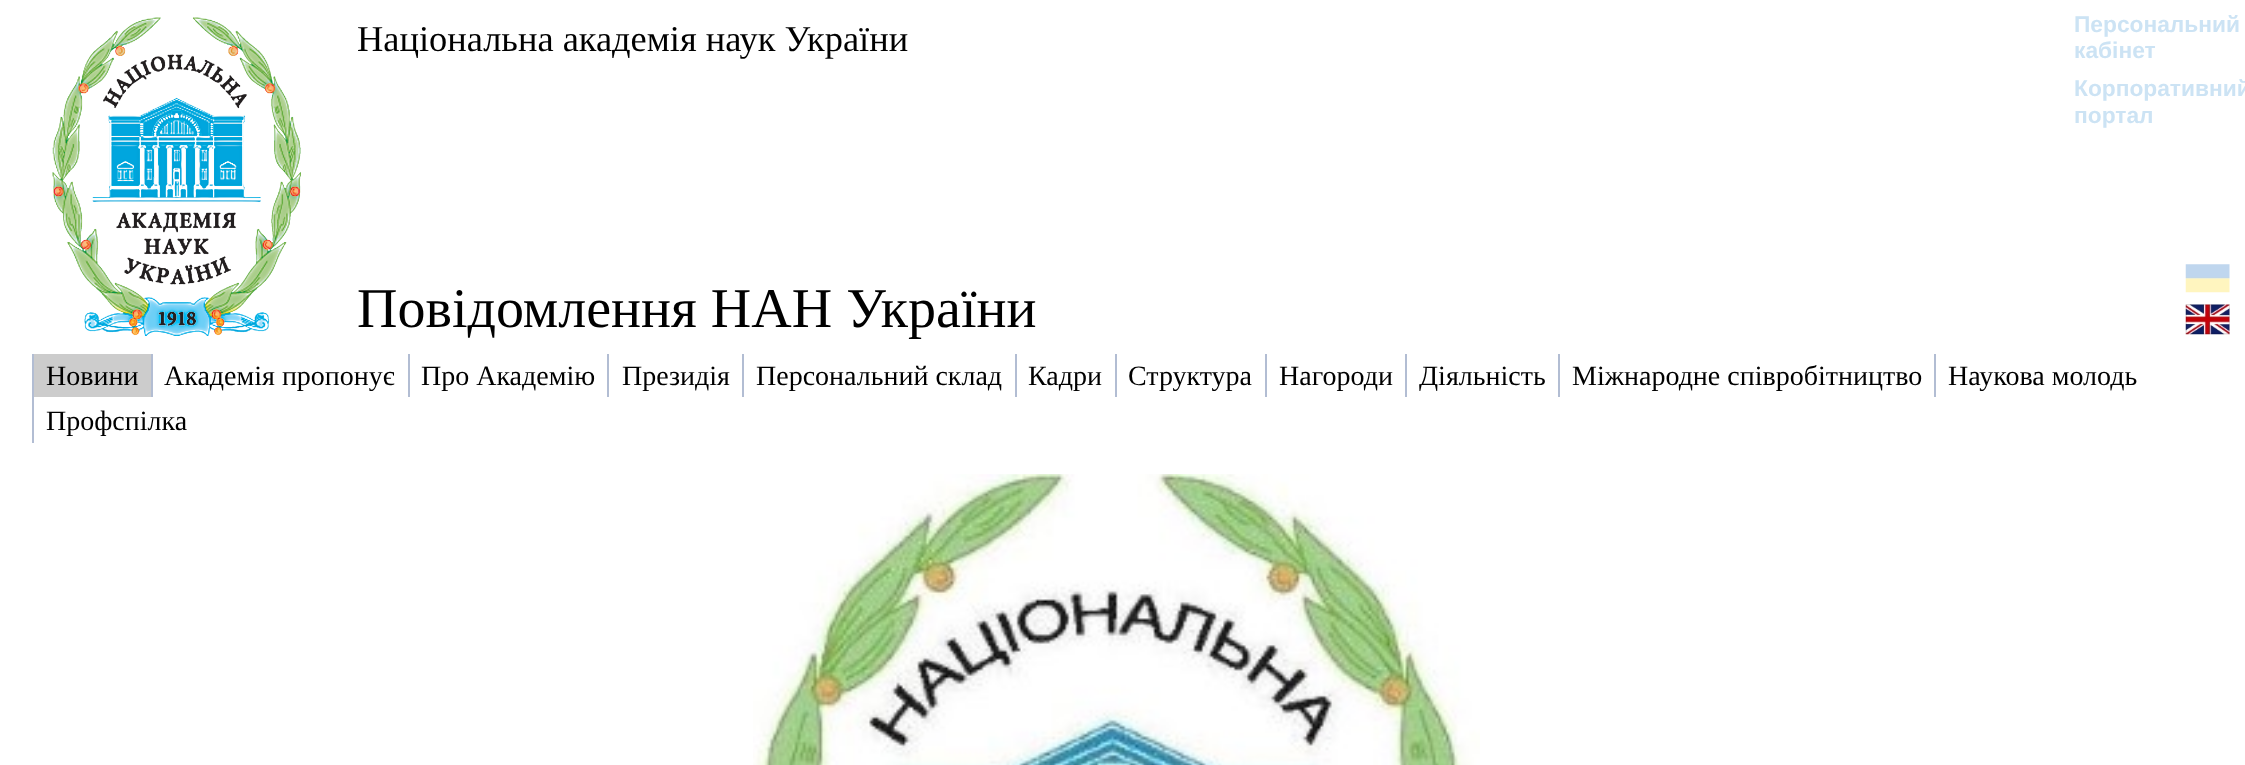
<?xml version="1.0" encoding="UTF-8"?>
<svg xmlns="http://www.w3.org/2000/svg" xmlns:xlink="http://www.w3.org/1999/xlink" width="2245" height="765">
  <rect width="100%" height="100%" fill="#ffffff" />
  <image x="52" y="17" width="249" height="319" xlink:href="image1.png" />
  <image x="2185" y="264" width="45" height="29" xlink:href="image2.png" />
  <image x="2185" y="304" width="45" height="31" xlink:href="image3.png" />
  <rect x="34" y="354" width="117" height="43" fill="#cccccc" />
  <rect x="32" y="354" width="2" height="89" fill="#b2bdd3" />
  <rect x="151" y="354" width="2" height="43" fill="#b2bdd3" />
  <rect x="408" y="354" width="2" height="43" fill="#b2bdd3" />
  <rect x="607" y="354" width="2" height="43" fill="#b2bdd3" />
  <rect x="742" y="354" width="2" height="43" fill="#b2bdd3" />
  <rect x="1015" y="354" width="2" height="43" fill="#b2bdd3" />
  <rect x="1115" y="354" width="2" height="43" fill="#b2bdd3" />
  <rect x="1265" y="354" width="2" height="43" fill="#b2bdd3" />
  <rect x="1405" y="354" width="2" height="43" fill="#b2bdd3" />
  <rect x="1558" y="354" width="2" height="43" fill="#b2bdd3" />
  <rect x="1934" y="354" width="2" height="43" fill="#b2bdd3" />
  <image x="753" y="474" width="727" height="291" xlink:href="image4.png" />
  <text x="357" y="51" style="font-family: Liberation Serif; font-size: 36.4px; fill: #000000">Національна академія наук України</text>
  <text x="2074" y="32" style="font-family: Liberation Sans; font-size: 22.75px; font-weight: bold; fill: #cce3f4">Персональний</text>
  <text x="2074" y="58" style="font-family: Liberation Sans; font-size: 22.75px; font-weight: bold; fill: #cce3f4">кабінет</text>
  <text x="2074" y="96" style="font-family: Liberation Sans; font-size: 22.75px; font-weight: bold; fill: #cce3f4">Корпоративний</text>
  <text x="2074" y="123" style="font-family: Liberation Sans; font-size: 22.75px; font-weight: bold; fill: #cce3f4">портал</text>
  <text x="357" y="327" style="font-family: Liberation Serif; font-size: 56px; fill: #000000">Повідомлення НАН України</text>
  <text x="46" y="385" style="font-family: Liberation Serif; font-size: 28px; fill: #000000">Новини</text>
  <text x="164" y="385" style="font-family: Liberation Serif; font-size: 28px; fill: #000000">Академія пропонує</text>
  <text x="421" y="385" style="font-family: Liberation Serif; font-size: 28px; fill: #000000">Про Академію</text>
  <text x="622" y="385" style="font-family: Liberation Serif; font-size: 28px; fill: #000000">Президія</text>
  <text x="756" y="385" style="font-family: Liberation Serif; font-size: 28px; fill: #000000">Персональний склад</text>
  <text x="1028" y="385" style="font-family: Liberation Serif; font-size: 28px; fill: #000000">Кадри</text>
  <text x="1128" y="385" style="font-family: Liberation Serif; font-size: 28px; fill: #000000">Структура</text>
  <text x="1279" y="385" style="font-family: Liberation Serif; font-size: 28px; fill: #000000">Нагороди</text>
  <text x="1419" y="385" style="font-family: Liberation Serif; font-size: 28px; fill: #000000">Діяльність</text>
  <text x="1572" y="385" style="font-family: Liberation Serif; font-size: 28px; fill: #000000">Міжнародне співробітництво</text>
  <text x="1948" y="385" style="font-family: Liberation Serif; font-size: 28px; fill: #000000">Наукова молодь</text>
  <text x="46" y="430" style="font-family: Liberation Serif; font-size: 28px; fill: #000000">Профспілка</text>
</svg>
